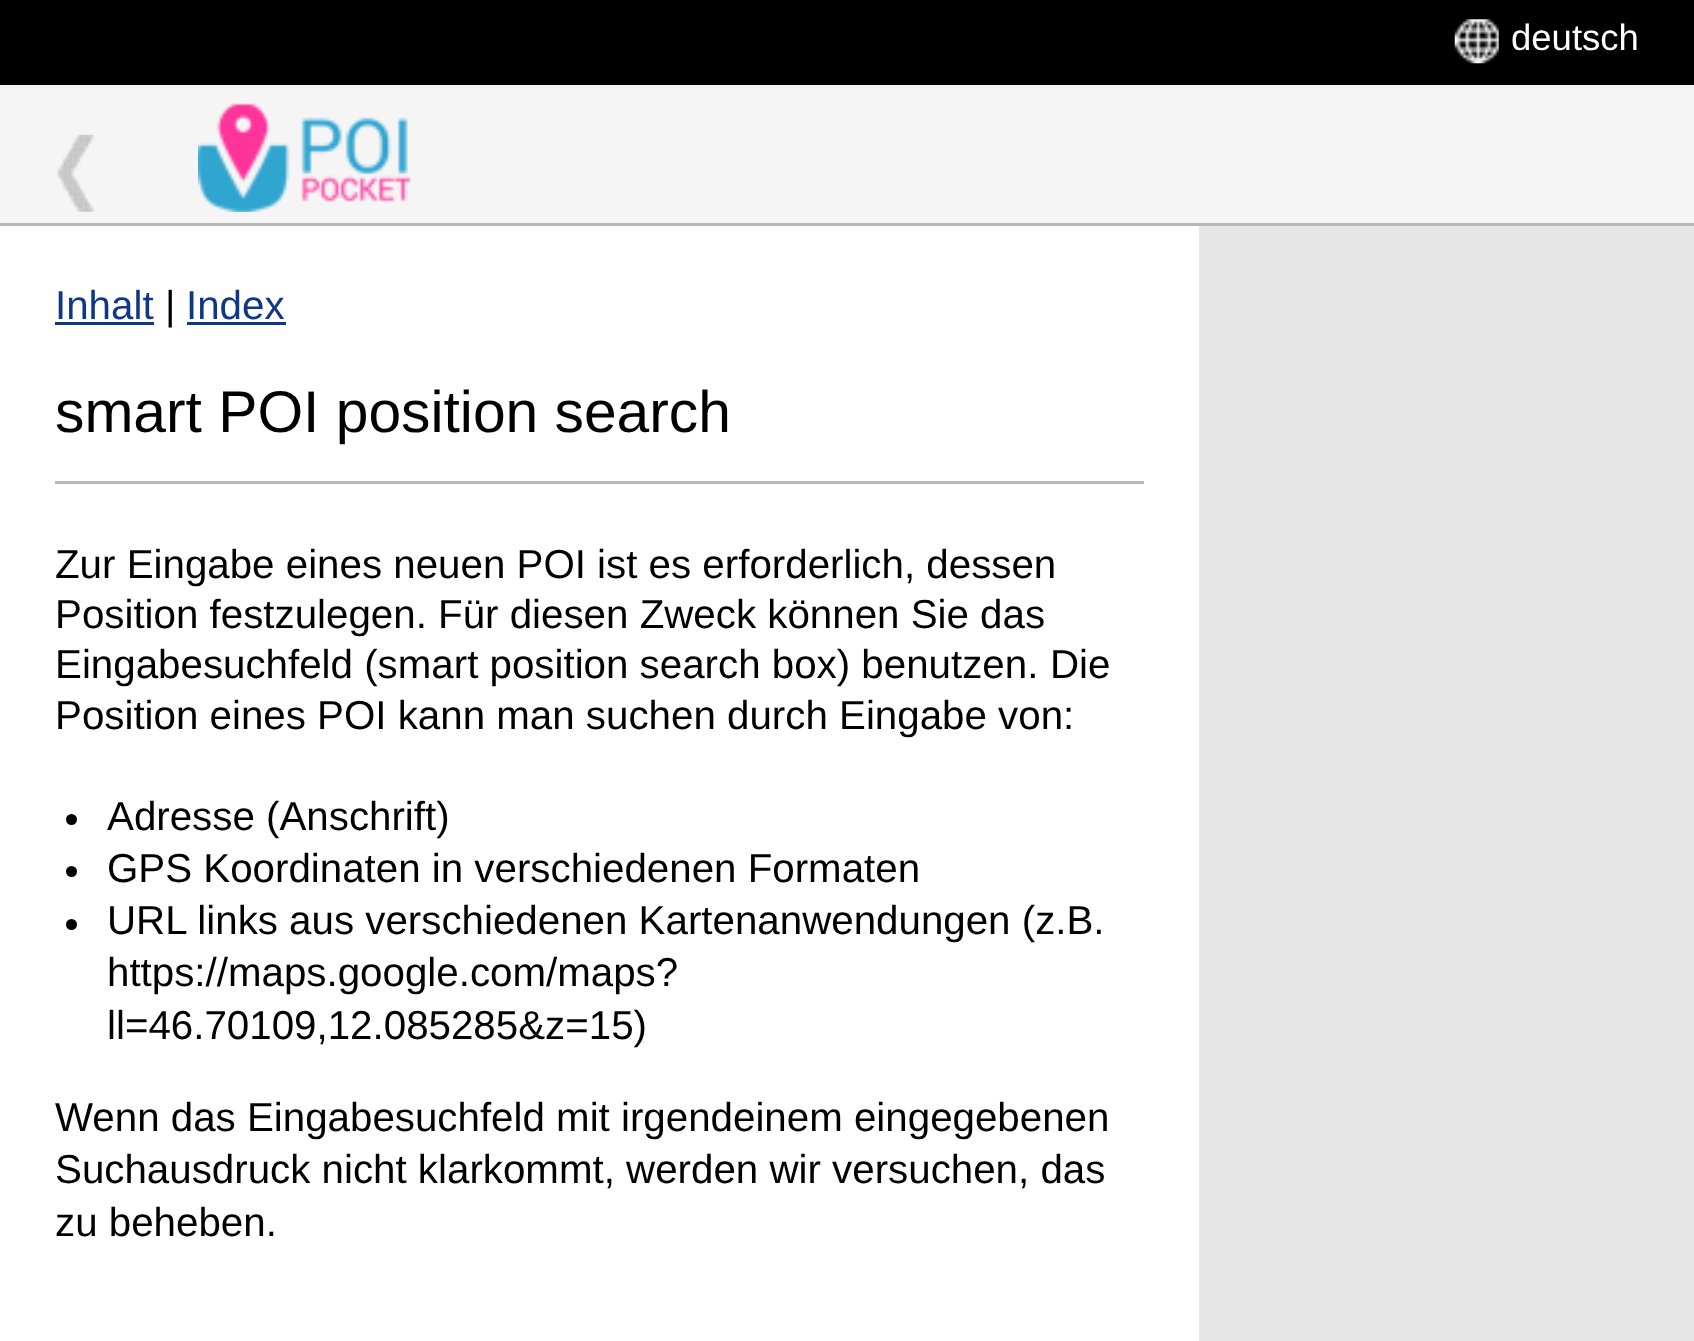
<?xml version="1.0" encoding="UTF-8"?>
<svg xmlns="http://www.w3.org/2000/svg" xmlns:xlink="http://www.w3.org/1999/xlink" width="1694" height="1341">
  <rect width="100%" height="100%" fill="#e6e6e6" />
  <rect width="1694" height="85" fill="#000000" />
  <image x="1454" y="19" width="45" height="45" xlink:href="image1.png" />
  <rect y="85" width="1694" height="138" fill="#f5f5f5" />
  <rect y="223" width="1694" height="3" fill="#b7b7b7" />
  <image x="57" y="134" width="38" height="78" xlink:href="image2.png" />
  <image x="198" y="103" width="213" height="109" xlink:href="image3.png" />
  <rect y="226" width="1199" height="1115" fill="#ffffff" />
  <rect x="55" y="322" width="99" height="3" fill="#0f3789" />
  <rect x="187" y="322" width="99" height="3" fill="#0f3789" />
  <rect x="55" y="481" width="1089" height="3" fill="#b7b7b7" />
  <circle cx="71.5" cy="819.5" r="5.5" fill="#000000" />
  <circle cx="71.5" cy="871.5" r="5.5" fill="#000000" />
  <circle cx="71.5" cy="924.5" r="5.5" fill="#000000" />
  <text x="1511" y="50" style="font-family: Liberation Sans; font-size: 36.5px; fill: #ffffff">deutsch</text>
  <text x="55" y="319" style="font-family: Liberation Sans; font-size: 40.3px; fill: #0f3789">Inhalt</text>
  <text x="165" y="319" style="font-family: Liberation Sans; font-size: 40.3px; fill: #000000">|</text>
  <text x="186" y="319" style="font-family: Liberation Sans; font-size: 40.3px; fill: #0f3789">Index</text>
  <text x="55" y="432" style="font-family: Liberation Sans; font-size: 58.75px; fill: #000000">smart POI position search</text>
  <text x="55" y="578" style="font-family: Liberation Sans; font-size: 40.3px; fill: #000000">Zur Eingabe eines neuen POI ist es erforderlich, dessen</text>
  <text x="55" y="628" style="font-family: Liberation Sans; font-size: 40.3px; fill: #000000">Position festzulegen. Für diesen Zweck können Sie das</text>
  <text x="55" y="678" style="font-family: Liberation Sans; font-size: 40.3px; fill: #000000">Eingabesuchfeld (smart position search box) benutzen.</text>
  <text x="1050" y="678" style="font-family: Liberation Sans; font-size: 40.3px; fill: #000000">Die</text>
  <text x="55" y="729" style="font-family: Liberation Sans; font-size: 40.3px; fill: #000000">Position eines POI kann man suchen durch Eingabe von:</text>
  <text x="107" y="830" style="font-family: Liberation Sans; font-size: 40.3px; fill: #000000">Adresse (Anschrift)</text>
  <text x="107" y="882" style="font-family: Liberation Sans; font-size: 40.3px; fill: #000000">GPS Koordinaten in verschiedenen Formaten</text>
  <text x="107" y="934" style="font-family: Liberation Sans; font-size: 40.3px; fill: #000000">URL links aus verschiedenen Kartenanwendungen (z.B.</text>
  <text x="107" y="986" style="font-family: Liberation Sans; font-size: 40.3px; fill: #000000">https://maps.google.com/maps?</text>
  <text x="107" y="1039" style="font-family: Liberation Sans; font-size: 40.3px; fill: #000000">ll=46.70109,12.085285&amp;z=15)</text>
  <text x="55" y="1131" style="font-family: Liberation Sans; font-size: 40.3px; fill: #000000">Wenn das Eingabesuchfeld mit irgendeinem eingegebenen</text>
  <text x="55" y="1183" style="font-family: Liberation Sans; font-size: 40.3px; fill: #000000">Suchausdruck nicht klarkommt, werden wir versuchen, das</text>
  <text x="55" y="1236" style="font-family: Liberation Sans; font-size: 40.3px; fill: #000000">zu beheben.</text>
</svg>
